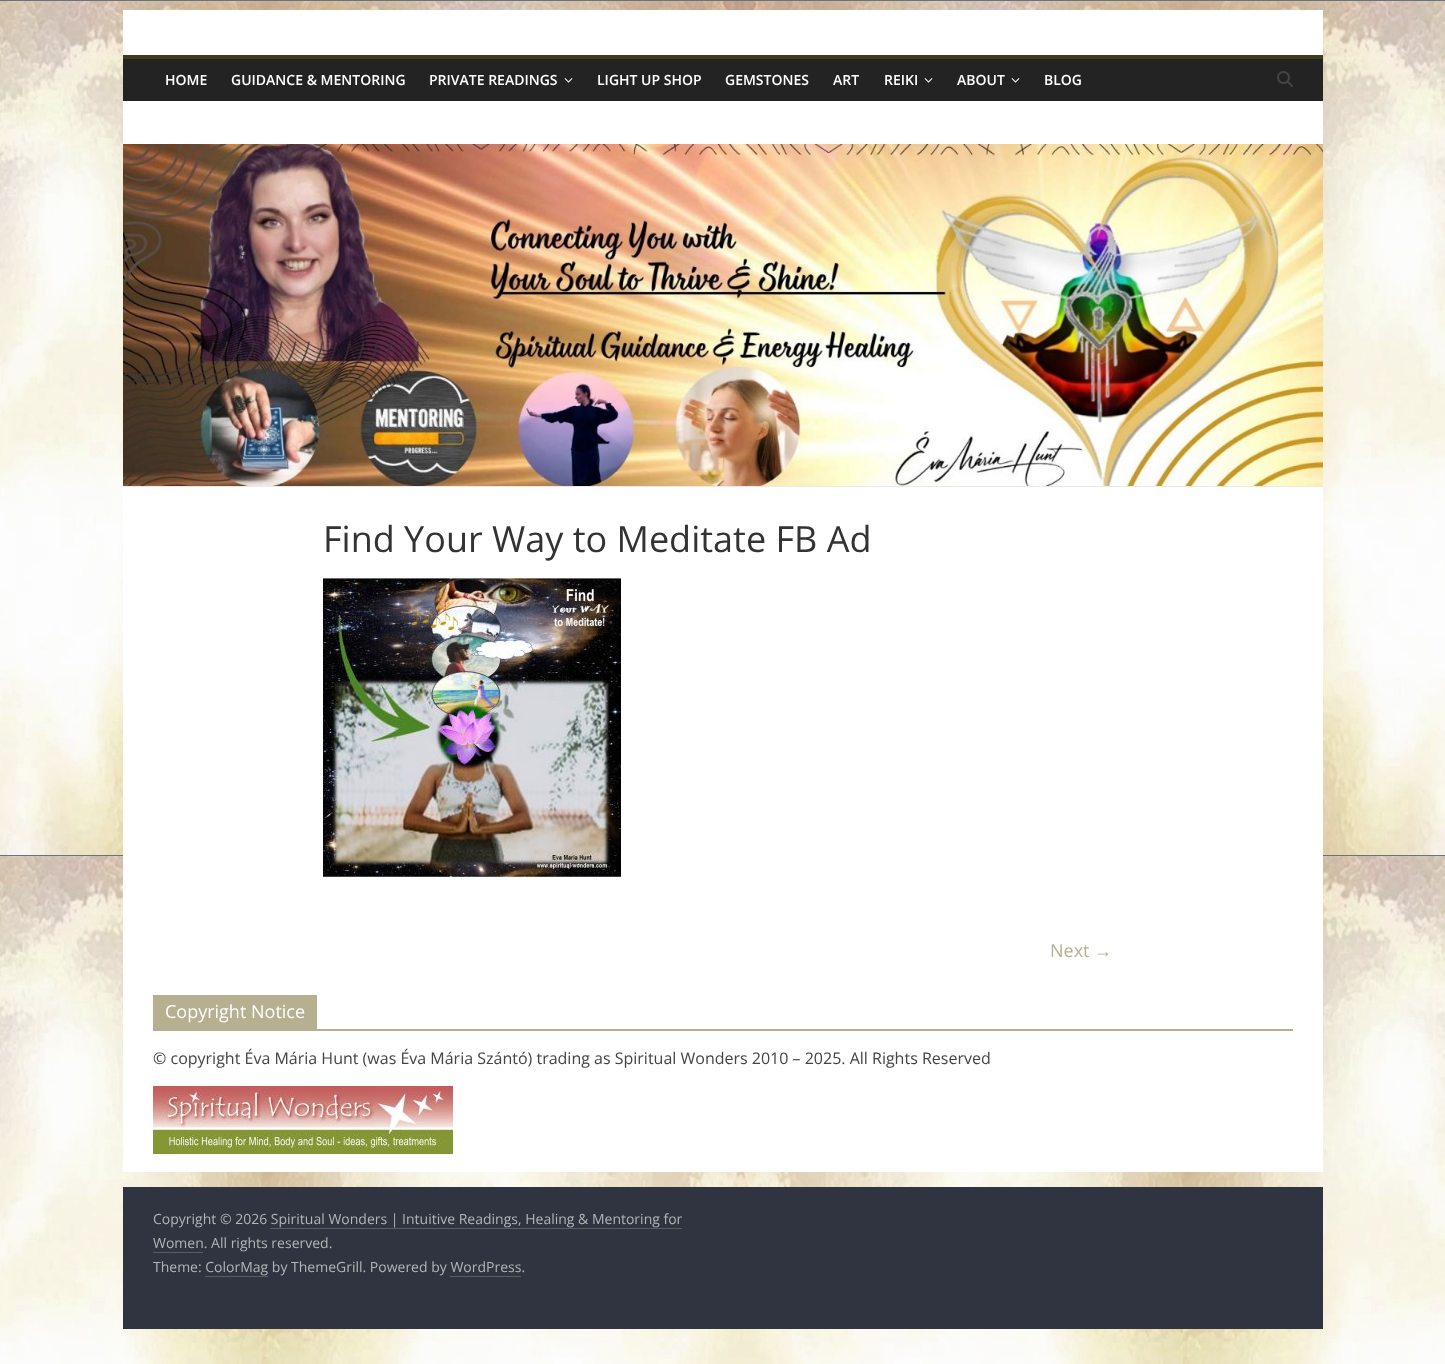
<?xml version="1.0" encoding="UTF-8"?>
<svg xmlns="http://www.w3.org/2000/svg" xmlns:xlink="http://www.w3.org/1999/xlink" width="1445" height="1364">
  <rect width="100%" height="100%" fill="#ffffff" />
  <image x="0" y="0" width="1445" height="1364" xlink:href="image1.png" />
  <rect x="123" y="10" width="1200" height="134" fill="#ffffff" />
  <rect x="123" y="59" width="1200" height="42" fill="#232323" />
  <rect x="123" y="55" width="1200" height="4" fill="#413b1b" />
  <image x="564" y="78" width="9" height="5" xlink:href="image2.png" />
  <image x="924" y="78" width="9" height="5" xlink:href="image2.png" />
  <image x="1011" y="78" width="9" height="5" xlink:href="image2.png" />
  <image x="1277" y="71" width="16" height="16" xlink:href="image3.png" />
  <image x="123" y="144" width="1200" height="342" xlink:href="image4.png" />
  <rect x="123" y="486" width="1200" height="1" fill="#eaeaea" />
  <rect x="123" y="487" width="1200" height="685" fill="#ffffff" />
  <image x="323" y="578" width="298" height="300" xlink:href="image5.png" />
  <rect x="153" y="1029" width="1140" height="2" fill="#b6b090" />
  <rect x="153" y="995" width="164" height="34" fill="#b6b090" />
  <image x="153" y="1086" width="300" height="68" xlink:href="image6.png" />
  <rect x="123" y="1187" width="1200" height="142" fill="#303440" />
  <rect x="270" y="1228" width="412" height="1" fill="#5a5d62" />
  <rect x="153" y="1252" width="50" height="1" fill="#5a5d62" />
  <rect x="205" y="1276" width="63" height="1" fill="#5a5d62" />
  <rect x="450" y="1276" width="71" height="1" fill="#5a5d62" />
  <text x="165" y="85" style="font-family: Open Sans; font-size: 14px; font-weight: 600; fill: #ffffff">HOME</text>
  <text x="231" y="85" style="font-family: Open Sans; font-size: 14px; font-weight: 600; fill: #ffffff">GUIDANCE &amp; MENTORING</text>
  <text x="429" y="85" style="font-family: Open Sans; font-size: 14px; font-weight: 600; fill: #ffffff">PRIVATE READINGS</text>
  <text x="597" y="85" style="font-family: Open Sans; font-size: 14px; font-weight: 600; fill: #ffffff">LIGHT UP SHOP</text>
  <text x="725" y="85" style="font-family: Open Sans; font-size: 14px; font-weight: 600; fill: #ffffff">GEMSTONES</text>
  <text x="833" y="85" style="font-family: Open Sans; font-size: 14px; font-weight: 600; fill: #ffffff">ART</text>
  <text x="884" y="85" style="font-family: Open Sans; font-size: 14px; font-weight: 600; fill: #ffffff">REIKI</text>
  <text x="957" y="85" style="font-family: Open Sans; font-size: 14px; font-weight: 600; fill: #ffffff">ABOUT</text>
  <text x="1044" y="85" style="font-family: Open Sans; font-size: 14px; font-weight: 600; fill: #ffffff">BLOG</text>
  <text x="323" y="552" style="font-family: Open Sans; font-size: 36px; fill: #333333">Find Your Way to Meditate FB Ad</text>
  <text x="1050" y="957" style="font-family: Open Sans; font-size: 18px; fill: #b6b090">Next</text>
  <text x="1094" y="957" style="font-family: Liberation Serif; font-size: 18px; fill: #b6b090">→</text>
  <text x="165" y="1018" style="font-family: Open Sans; font-size: 18px; fill: #ffffff">Copyright Notice</text>
  <text x="153" y="1064" style="font-family: Open Sans; font-size: 16px; fill: #444444">© copyright Éva Mária Hunt (was Éva Mária Szántó) trading as Spiritual Wonders 2010 – 2025. All Rights Reserved</text>
  <text x="153" y="1224" style="font-family: Open Sans; font-size: 14px; fill: #b1b6b6">Copyright © 2026 Spiritual Wonders | Intuitive Readings, Healing &amp; Mentoring for</text>
  <text x="153" y="1248" style="font-family: Open Sans; font-size: 14px; fill: #b1b6b6">Women. All rights reserved.</text>
  <text x="153" y="1272" style="font-family: Open Sans; font-size: 14px; fill: #b1b6b6">Theme: ColorMag by ThemeGrill. Powered by WordPress.</text>
</svg>
